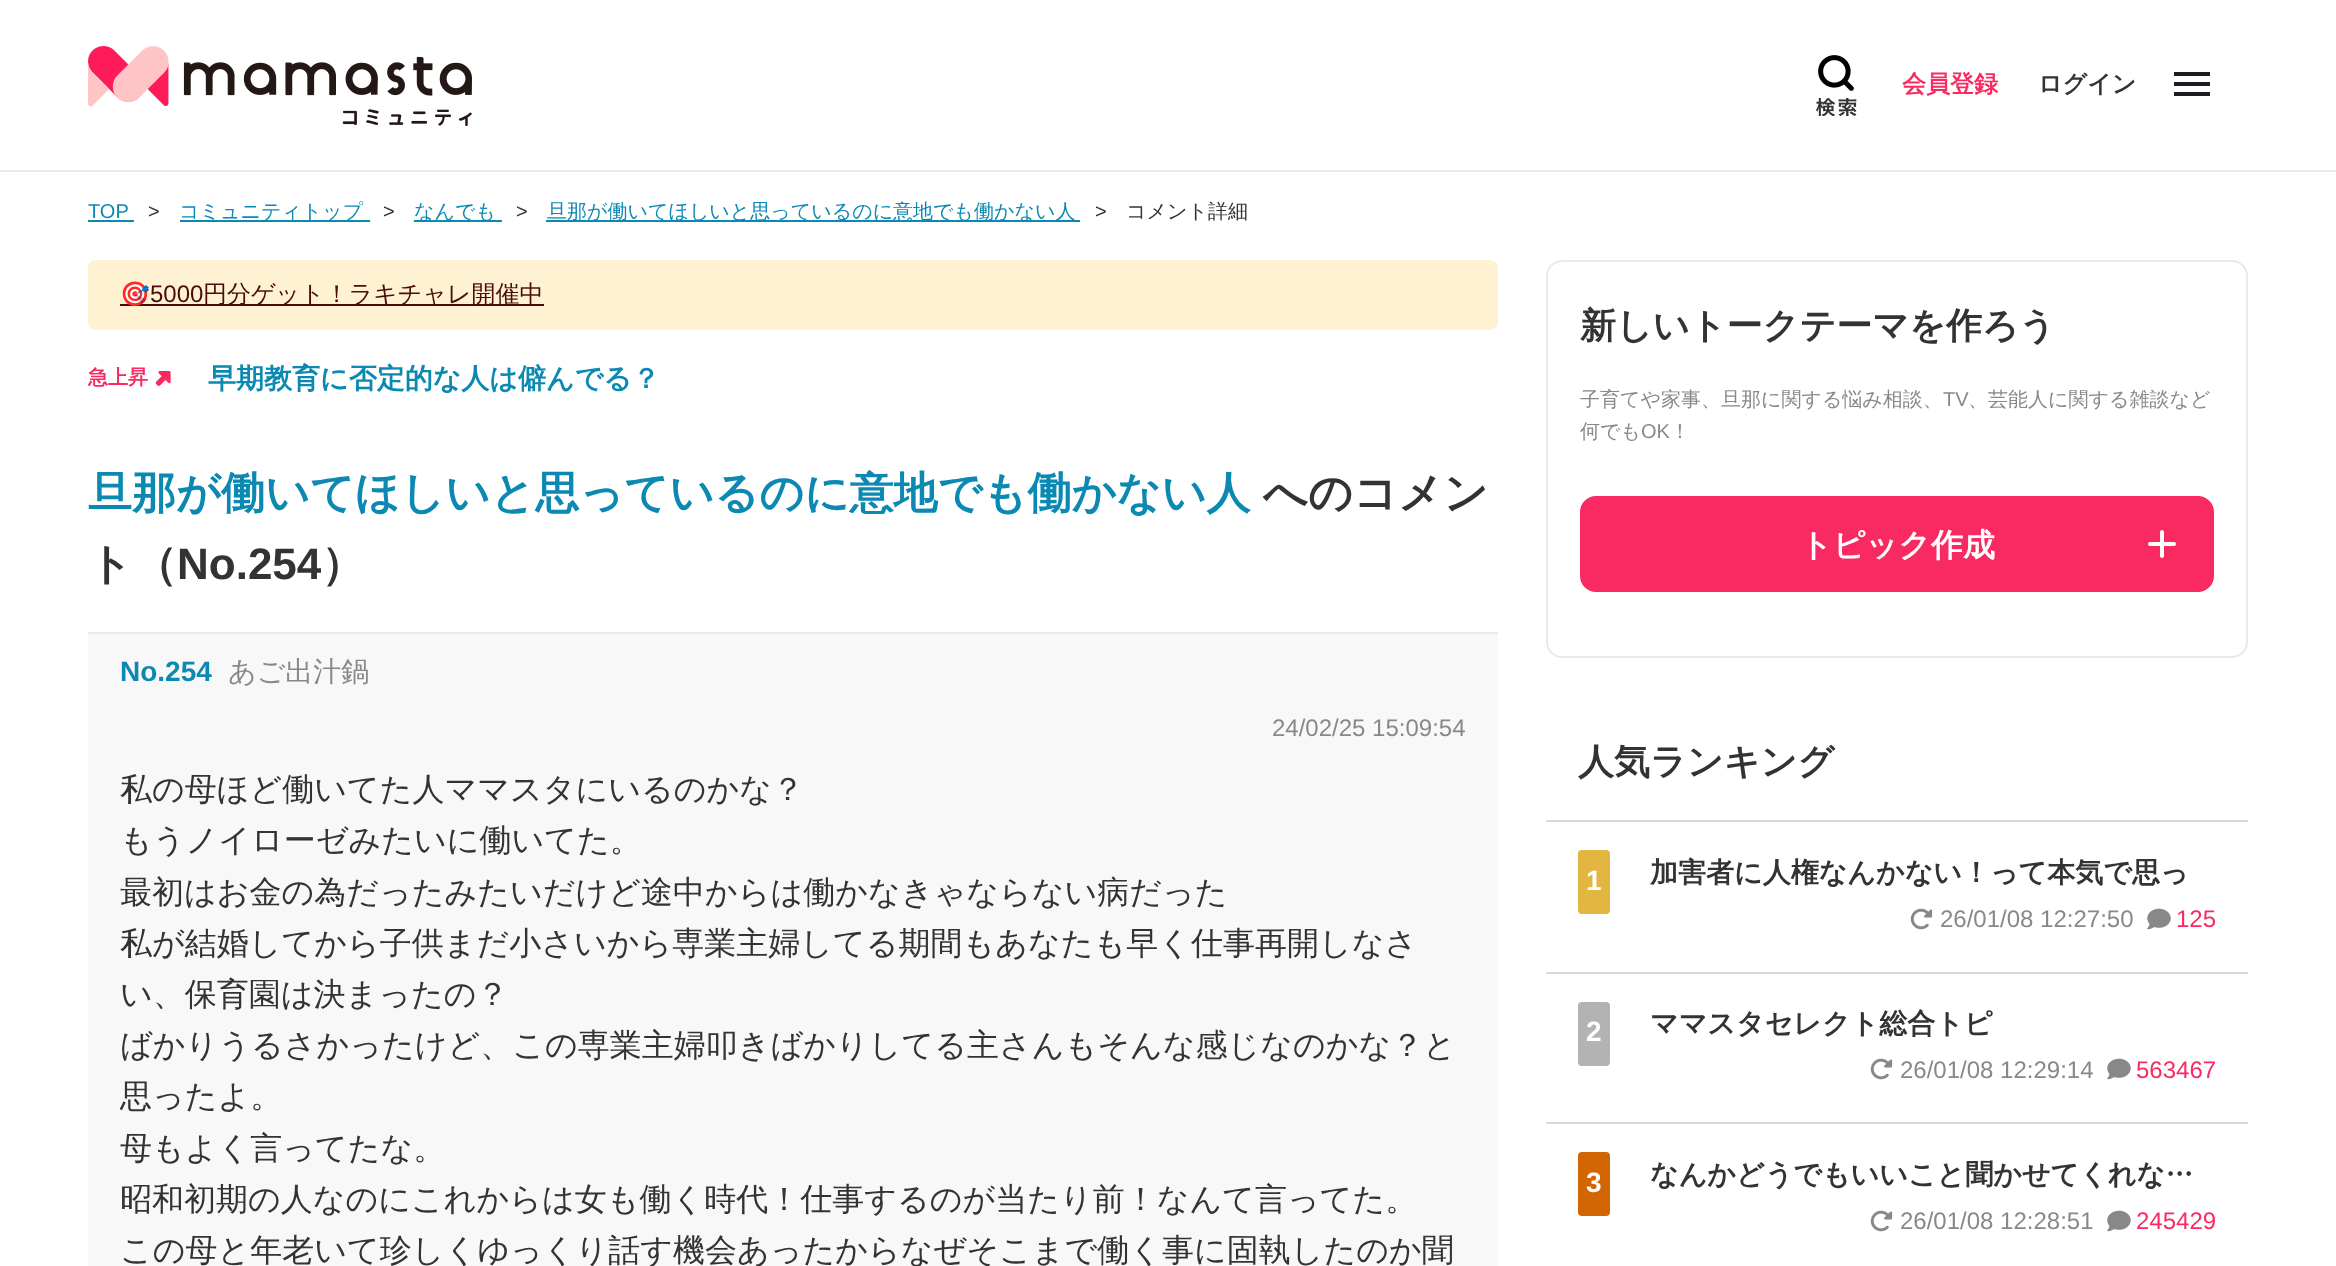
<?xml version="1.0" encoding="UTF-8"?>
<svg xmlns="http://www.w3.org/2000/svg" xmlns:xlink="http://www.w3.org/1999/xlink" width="2336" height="1266">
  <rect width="100%" height="100%" fill="#ffffff" />
  <rect y="170" width="2336" height="2" fill="#e9e9e9" />
  <image x="88" y="46" width="384" height="80" xlink:href="image1.png" />
  <image x="1816" y="55" width="41" height="61" xlink:href="image2.png" />
  <rect x="2174" y="72" width="36" height="4" fill="#1c1b1f" />
  <rect x="2174" y="82" width="36" height="4" fill="#1c1b1f" />
  <rect x="2174" y="92" width="36" height="4" fill="#1c1b1f" />
  <rect x="88" y="220" width="46" height="2" fill="#0b89b3" />
  <rect x="180" y="220" width="190" height="2" fill="#0b89b3" />
  <rect x="414" y="220" width="88" height="2" fill="#0b89b3" />
  <rect x="546" y="220" width="534" height="2" fill="#0b89b3" />
  <rect x="88" y="260" width="1410" height="70" rx="8" fill="#fef2d3" />
  <rect x="120" y="304" width="424" height="2" fill="#4b0b0b" />
  <image x="155" y="371" width="16" height="15" xlink:href="image3.png" />
  <rect x="88" y="634" width="1410" height="632" fill="#f8f8f8" />
  <rect x="88" y="632" width="1410" height="2" fill="#e9e9e9" />
  <rect x="1547" y="261" width="700" height="396" rx="15" fill="none" stroke="#e9e9e9" stroke-width="2" />
  <rect x="1581" y="497" width="632" height="94" rx="15" fill="#f92962" stroke="#f92962" stroke-width="2" />
  <rect x="2148" y="542" width="28" height="4" rx="2" fill="#ffffff" />
  <path d="M 2164 532 v 24 c 0 1 -1 2 -2 2 c -1 0 -2 -1 -2 -2 v -24 c 0 -1 1 -2 2 -2 c 1 0 2 1 2 2 z" fill="#ffffff" />
  <rect x="1546" y="820" width="702" height="2" fill="#d9d9d9" />
  <rect x="1546" y="972" width="702" height="2" fill="#d9d9d9" />
  <rect x="1578" y="850" width="32" height="64" rx="4" fill="#e3b642" />
  <image x="1910" y="908" width="23" height="22" xlink:href="image4.png" />
  <image x="2147" y="908" width="24" height="22" xlink:href="image5.png" />
  <rect x="1546" y="1122" width="702" height="2" fill="#d9d9d9" />
  <rect x="1578" y="1002" width="32" height="64" rx="4" fill="#b3b3b3" />
  <image x="1870" y="1058" width="23" height="22" xlink:href="image4.png" />
  <image x="2107" y="1058" width="24" height="22" xlink:href="image5.png" />
  <rect x="1578" y="1152" width="32" height="64" rx="4" fill="#d16603" />
  <image x="1870" y="1210" width="23" height="22" xlink:href="image4.png" />
  <image x="2107" y="1210" width="24" height="22" xlink:href="image5.png" />
  <text x="1902" y="92" style="font-family: WenQuanYi Zen Hei; font-size: 24px; font-weight: bold; fill: #f92962">会員登録</text>
  <text x="2038" y="92" style="font-family: WenQuanYi Zen Hei; font-size: 24px; font-weight: bold; fill: #333333">ログイン</text>
  <text x="88" y="218" style="font-family: Liberation Sans; font-size: 20px; fill: #0b89b3">TOP</text>
  <text x="148" y="218" style="font-family: Liberation Sans; font-size: 20px; fill: #333333">&gt;</text>
  <text x="179" y="218" style="font-family: WenQuanYi Zen Hei; font-size: 20px; font-weight: 500; fill: #0b89b3">コミュニティトップ</text>
  <text x="383" y="218" style="font-family: Liberation Sans; font-size: 20px; fill: #333333">&gt;</text>
  <text x="414" y="218" style="font-family: WenQuanYi Zen Hei; font-size: 20px; font-weight: 500; fill: #0b89b3">なんでも</text>
  <text x="516" y="218" style="font-family: Liberation Sans; font-size: 20px; fill: #333333">&gt;</text>
  <text x="547" y="218" style="font-family: WenQuanYi Zen Hei; font-size: 20px; font-weight: 500; fill: #0b89b3">旦那が働いてほしいと思っているのに意地でも働かない人</text>
  <text x="1095" y="218" style="font-family: Liberation Sans; font-size: 20px; fill: #333333">&gt;</text>
  <text x="1126" y="218" style="font-family: WenQuanYi Zen Hei; font-size: 20px; font-weight: 500; fill: #333333">コメント詳細</text>
  <text x="120" y="302" style="font-family: Noto Color Emoji; font-size: 24px; fill: #4b0b0b">🎯</text>
  <text x="150" y="302" style="font-family: Liberation Sans; font-size: 24px; fill: #4b0b0b">5000</text>
  <text x="203" y="302" style="font-family: WenQuanYi Zen Hei; font-size: 24px; font-weight: 500; fill: #4b0b0b">円分ゲット！ラキチャレ開催中</text>
  <text x="88" y="384" style="font-family: WenQuanYi Zen Hei; font-size: 20px; font-weight: bold; fill: #f92962">急上昇</text>
  <text x="208" y="388" style="font-family: WenQuanYi Zen Hei; font-size: 28px; font-weight: bold; fill: #0b89b3">早期教育に否定的な人は僻んでる？</text>
  <text x="88" y="508" style="font-family: WenQuanYi Zen Hei; font-size: 44px; font-weight: bold; fill: #0b89b3">旦那が働いてほしいと思っているのに意地でも働かない人</text>
  <text x="1263" y="508" style="font-family: WenQuanYi Zen Hei; font-size: 44px; font-weight: bold; fill: #333333">へのコメン</text>
  <text x="88" y="579" style="font-family: WenQuanYi Zen Hei; font-size: 44px; font-weight: bold; fill: #333333">ト（</text>
  <text x="177" y="579" style="font-family: Liberation Sans; font-size: 44px; font-weight: bold; fill: #333333">No.254</text>
  <text x="321" y="579" style="font-family: WenQuanYi Zen Hei; font-size: 44px; font-weight: bold; fill: #333333">）</text>
  <text x="120" y="681" style="font-family: Liberation Sans; font-size: 28px; font-weight: bold; fill: #0b89b3">No.254</text>
  <text x="228" y="681" style="font-family: WenQuanYi Zen Hei; font-size: 28px; font-weight: 500; fill: #888888">あご出汁鍋</text>
  <text x="1272" y="736" style="font-family: Liberation Sans; font-size: 24px; fill: #888888">24/02/25 15:09:54</text>
  <text x="120" y="800" style="font-family: WenQuanYi Zen Hei; font-size: 32px; font-weight: 500; fill: #333333">私の母ほど働いてた人ママスタにいるのかな？</text>
  <text x="120" y="851" style="font-family: WenQuanYi Zen Hei; font-size: 32px; font-weight: 500; fill: #333333">もうノイローゼみたいに働いてた。</text>
  <text x="120" y="903" style="font-family: WenQuanYi Zen Hei; font-size: 32px; font-weight: 500; fill: #333333">最初はお金の為だったみたいだけど途中からは働かなきゃならない病だった</text>
  <text x="120" y="954" style="font-family: WenQuanYi Zen Hei; font-size: 32px; font-weight: 500; fill: #333333">私が結婚してから子供まだ小さいから専業主婦してる期間もあなたも早く仕事再開しなさ</text>
  <text x="120" y="1005" style="font-family: WenQuanYi Zen Hei; font-size: 32px; font-weight: 500; fill: #333333">い、保育園は決まったの？</text>
  <text x="120" y="1056" style="font-family: WenQuanYi Zen Hei; font-size: 32px; font-weight: 500; fill: #333333">ばかりうるさかったけど、この専業主婦叩きばかりしてる主さんもそんな感じなのかな？と</text>
  <text x="120" y="1107" style="font-family: WenQuanYi Zen Hei; font-size: 32px; font-weight: 500; fill: #333333">思ったよ。</text>
  <text x="120" y="1159" style="font-family: WenQuanYi Zen Hei; font-size: 32px; font-weight: 500; fill: #333333">母もよく言ってたな。</text>
  <text x="120" y="1210" style="font-family: WenQuanYi Zen Hei; font-size: 32px; font-weight: 500; fill: #333333">昭和初期の人なのにこれからは女も働く時代！仕事するのが当たり前！なんて言ってた。</text>
  <text x="120" y="1261" style="font-family: WenQuanYi Zen Hei; font-size: 32px; font-weight: 500; fill: #333333">この母と年老いて珍しくゆっくり話す機会あったからなぜそこまで働く事に固執したのか聞</text>
  <text x="1580" y="338" style="font-family: WenQuanYi Zen Hei; font-size: 36px; font-weight: bold; fill: #333333">新しいトークテーマを作ろう</text>
  <text x="1580" y="406" style="font-family: WenQuanYi Zen Hei; font-size: 20px; font-weight: 500; fill: #888888">子育てや家事、旦那に関する悩み相談、</text>
  <text x="1943" y="406" style="font-family: Liberation Sans; font-size: 20px; fill: #888888">TV</text>
  <text x="1968" y="406" style="font-family: WenQuanYi Zen Hei; font-size: 20px; font-weight: 500; fill: #888888">、芸能人に関する雑談など</text>
  <text x="1580" y="438" style="font-family: WenQuanYi Zen Hei; font-size: 20px; font-weight: 500; fill: #888888">何でも</text>
  <text x="1641" y="438" style="font-family: Liberation Sans; font-size: 20px; fill: #888888">OK</text>
  <text x="1670" y="438" style="font-family: WenQuanYi Zen Hei; font-size: 20px; font-weight: 500; fill: #888888">！</text>
  <text x="1800" y="556" style="font-family: WenQuanYi Zen Hei; font-size: 32px; font-weight: bold; fill: #ffffff">トピック作成</text>
  <text x="1578" y="774" style="font-family: WenQuanYi Zen Hei; font-size: 36px; font-weight: bold; fill: #333333">人気ランキング</text>
  <text x="1586" y="890" style="font-family: Liberation Sans; font-size: 28px; font-weight: bold; fill: #ffffff">1</text>
  <text x="1650" y="882" style="font-family: WenQuanYi Zen Hei; font-size: 28px; font-weight: bold; fill: #333333">加害者に人権なんかない！って本気で思っ</text>
  <text x="1940" y="927" style="font-family: Liberation Sans; font-size: 24px; fill: #888888">26/01/08 12:27:50</text>
  <text x="2176" y="927" style="font-family: Liberation Sans; font-size: 24px; fill: #f92962">125</text>
  <text x="1586" y="1041" style="font-family: Liberation Sans; font-size: 28px; font-weight: bold; fill: #ffffff">2</text>
  <text x="1650" y="1033" style="font-family: WenQuanYi Zen Hei; font-size: 28px; font-weight: bold; fill: #333333">ママスタセレクト総合トピ</text>
  <text x="1900" y="1078" style="font-family: Liberation Sans; font-size: 24px; fill: #888888">26/01/08 12:29:14</text>
  <text x="2136" y="1078" style="font-family: Liberation Sans; font-size: 24px; fill: #f92962">563467</text>
  <text x="1586" y="1192" style="font-family: Liberation Sans; font-size: 28px; font-weight: bold; fill: #ffffff">3</text>
  <text x="1650" y="1184" style="font-family: WenQuanYi Zen Hei; font-size: 28px; font-weight: bold; fill: #333333">なんかどうでもいいこと聞かせてくれな…</text>
  <text x="1900" y="1229" style="font-family: Liberation Sans; font-size: 24px; fill: #888888">26/01/08 12:28:51</text>
  <text x="2136" y="1229" style="font-family: Liberation Sans; font-size: 24px; fill: #f92962">245429</text>
</svg>
